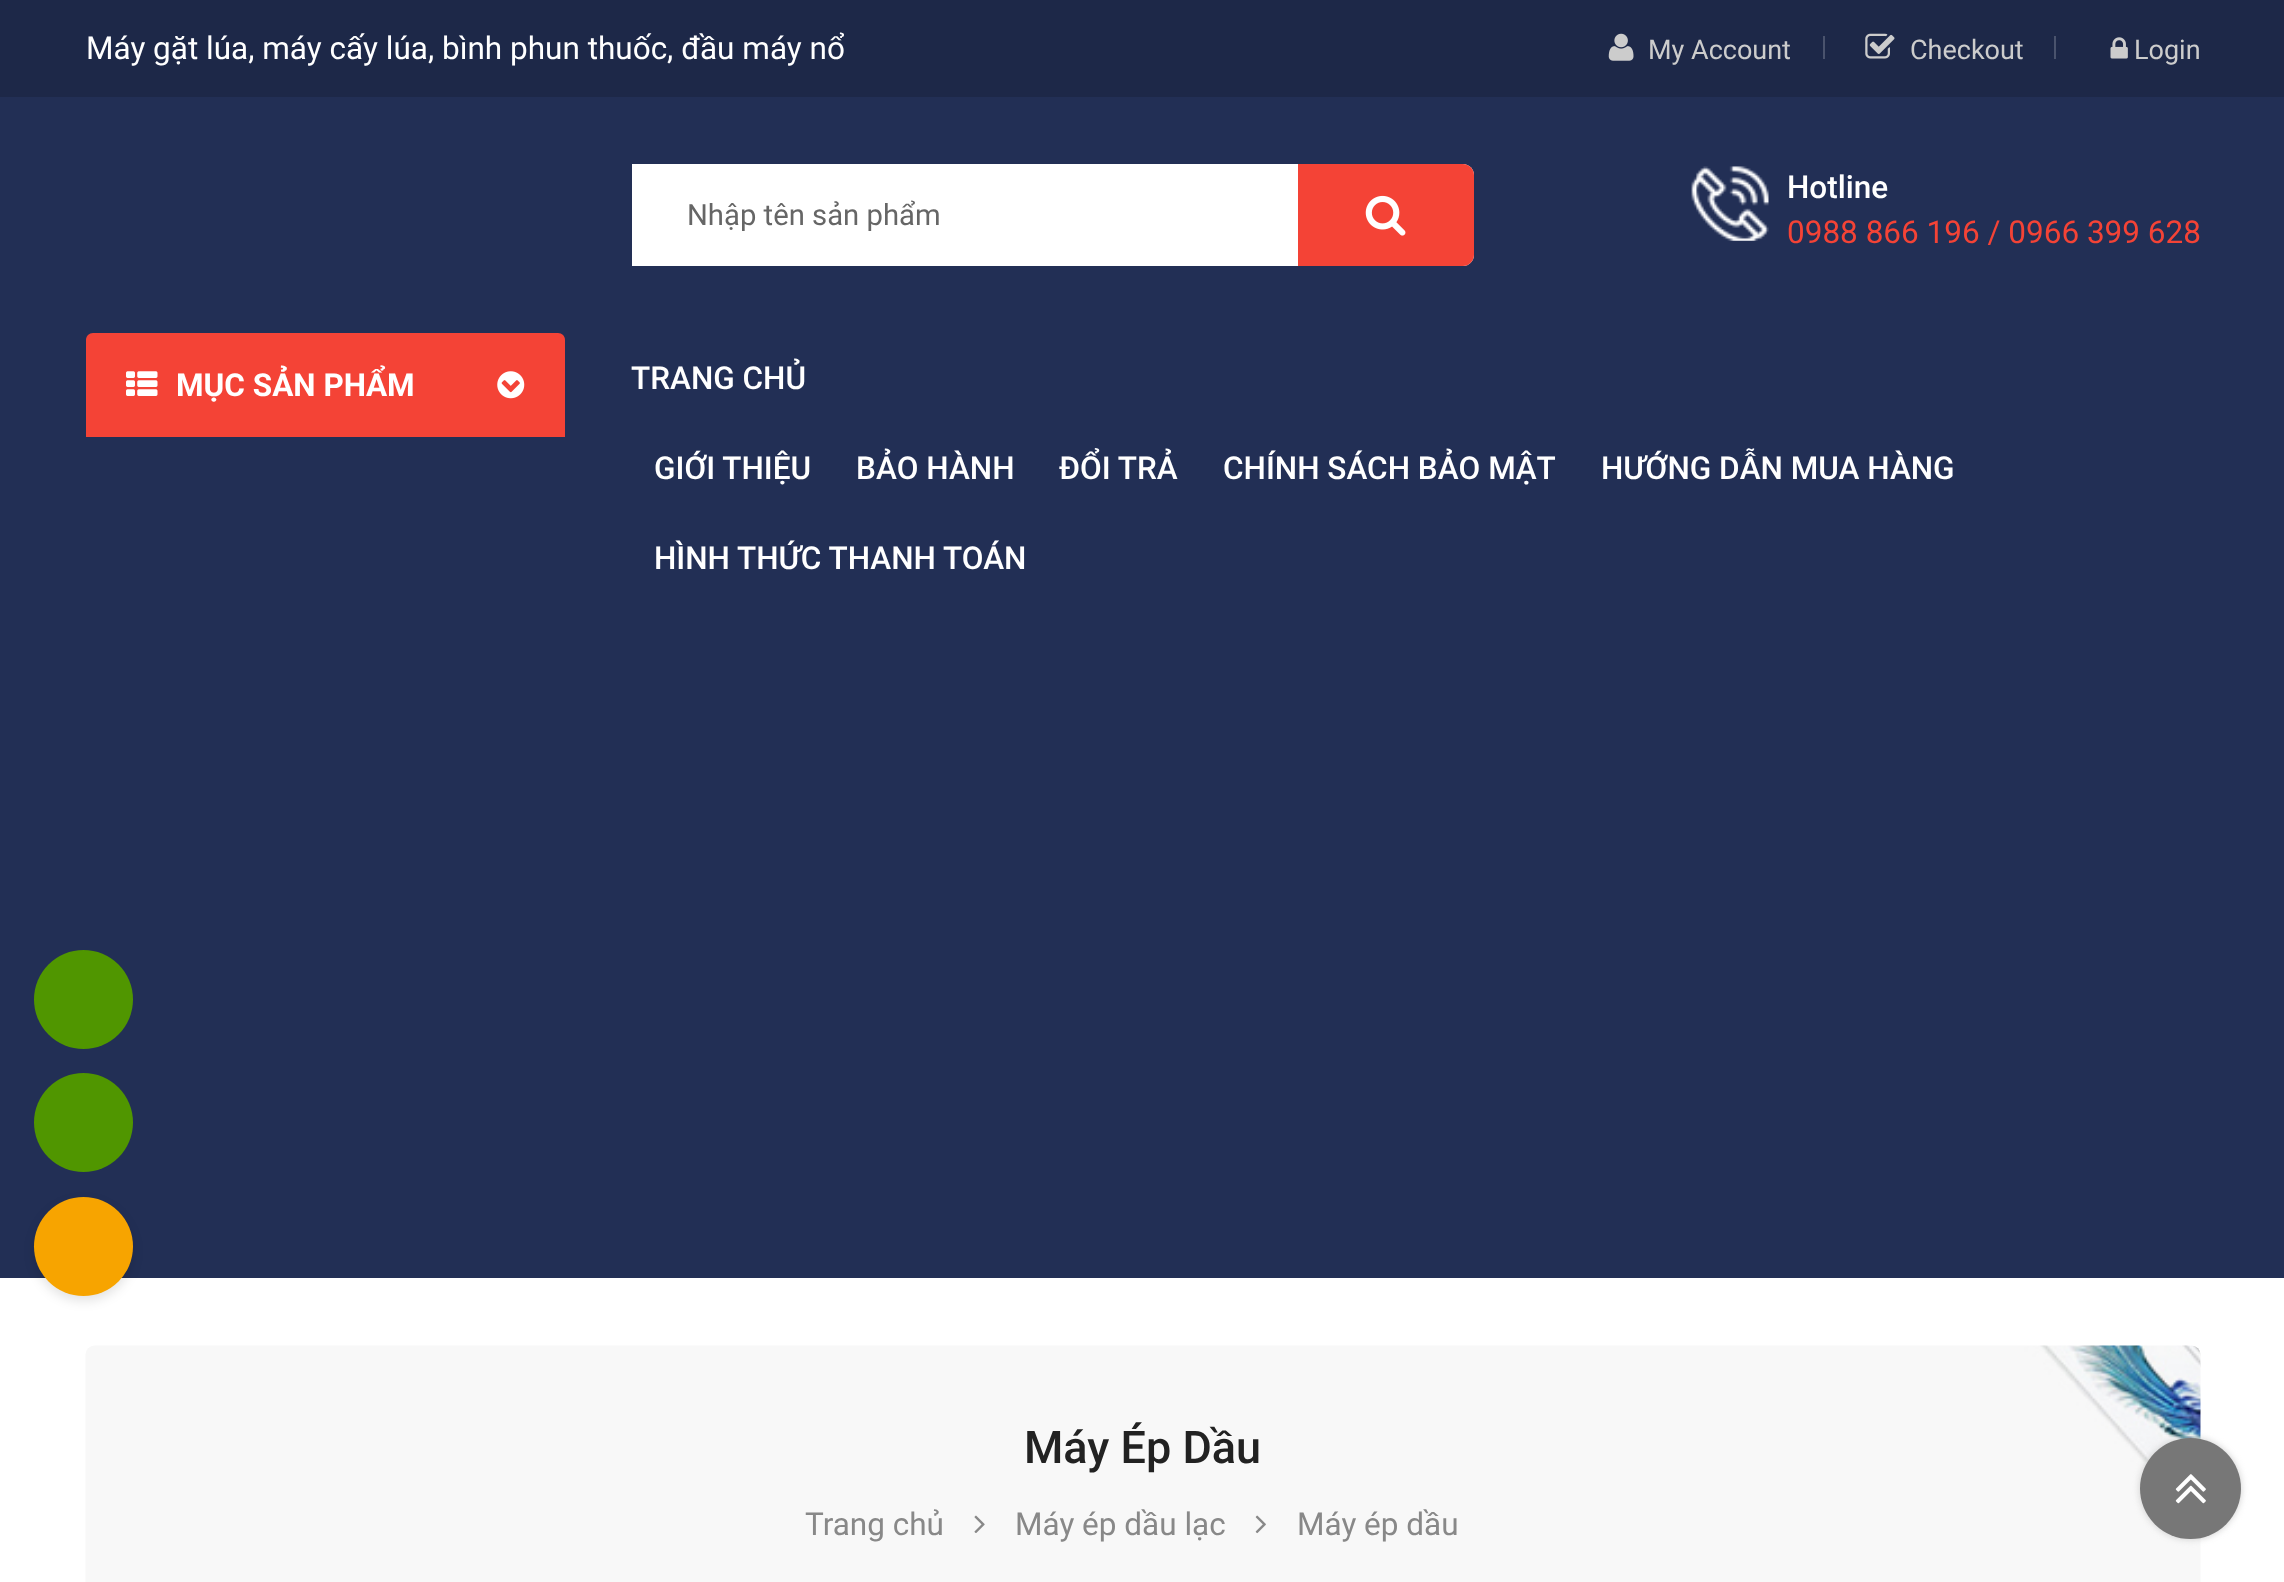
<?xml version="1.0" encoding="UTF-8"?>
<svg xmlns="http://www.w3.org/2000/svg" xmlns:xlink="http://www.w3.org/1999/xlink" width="2284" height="1582">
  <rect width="100%" height="100%" fill="#ffffff" />
  <rect y="97" width="2284" height="1181" fill="#222f55" />
  <circle cx="83.5" cy="999.5" r="49.5" fill="#509600" />
  <circle cx="83.5" cy="1122.5" r="49.5" fill="#509600" />
  <rect x="34" y="1202" width="99" height="99" rx="49.5" fill="#000000" fill-opacity="0.11" filter="blur(5.5px)" />
  <circle cx="83.5" cy="1246.5" r="49.5" fill="#f7a400" />
  <rect width="2284" height="97" fill="#1d2848" />
  <image x="1608" y="33" width="26" height="28" xlink:href="image1.png" />
  <rect x="1823" y="36" width="2" height="23" fill="#4a536d" />
  <image x="1865" y="33" width="30" height="26" xlink:href="image2.png" />
  <rect x="2054" y="36" width="2" height="23" fill="#4a536d" />
  <image x="2110" y="37" width="18" height="22" xlink:href="image3.png" />
  <path d="M 632 164 h 831 c 6 0 11 5 11 11 v 80 c 0 6 -5 11 -11 11 h -831 z" fill="#ffffff" />
  <rect x="632" y="164" width="842" height="102" rx="14" fill="#ffffff" />
  <path d="M 1298 164 h 165 c 6 0 11 5 11 11 v 80 c 0 6 -5 11 -11 11 h -165 z" fill="#f44336" />
  <image x="1365" y="195" width="41" height="41" xlink:href="image4.png" />
  <image x="1691" y="166" width="78" height="75" xlink:href="image5.png" />
  <path d="M 93 333 h 465 c 4 0 7 3 7 7 v 97 h -479 v -97 c 0 -4 3 -7 7 -7 z" fill="#f44336" />
  <image x="126" y="371" width="32" height="25" xlink:href="image6.png" />
  <image x="497" y="371" width="28" height="28" xlink:href="image7.png" />
  <image x="85" y="1345" width="2116" height="237" xlink:href="image8.png" />
  <image x="974" y="1515" width="11" height="18" xlink:href="image9.png" />
  <image x="1255" y="1515" width="11" height="19" xlink:href="image10.png" />
  <rect x="2140" y="1438" width="101" height="101" rx="50.5" fill="#cccccc" filter="blur(3.5px)" />
  <circle cx="2190.5" cy="1488.5" r="50.5" fill="#777777" />
  <image x="2175" y="1474" width="31" height="30" xlink:href="image11.png" />
  <text x="86" y="59" style="font-family: Roboto; font-size: 31.5px; fill: #ffffff">Máy gặt lúa, máy cấy lúa, bình phun thuốc, đầu máy nổ</text>
  <text x="1648" y="59" style="font-family: Roboto; font-size: 27px; fill: #cccccc">My Account</text>
  <text x="1910" y="59" style="font-family: Roboto; font-size: 27px; fill: #cccccc">Checkout</text>
  <text x="2134" y="59" style="font-family: Roboto; font-size: 27px; fill: #cccccc">Login</text>
  <text x="687" y="225" style="font-family: Roboto; font-size: 29.25px; fill: #666666">Nhập tên sản phẩm</text>
  <text x="1787" y="198" style="font-family: Roboto; font-size: 31.5px; font-weight: 500; fill: #ffffff">Hotline</text>
  <text x="1787" y="243" style="font-family: Roboto; font-size: 31.5px; fill: #f44336">0988 866 196 / 0966 399 628</text>
  <text x="176" y="396" style="font-family: Roboto; font-size: 31.5px; font-weight: bold; fill: #ffffff">MỤC SẢN PHẨM</text>
  <text x="631" y="389" style="font-family: Roboto; font-size: 31.5px; font-weight: 500; fill: #ffffff">TRANG CHỦ</text>
  <text x="654" y="479" style="font-family: Roboto; font-size: 31.5px; font-weight: 500; fill: #ffffff">GIỚI THIỆU</text>
  <text x="856" y="479" style="font-family: Roboto; font-size: 31.5px; font-weight: 500; fill: #ffffff">BẢO HÀNH</text>
  <text x="1059" y="479" style="font-family: Roboto; font-size: 31.5px; font-weight: 500; fill: #ffffff">ĐỔI TRẢ</text>
  <text x="1223" y="479" style="font-family: Roboto; font-size: 31.5px; font-weight: 500; fill: #ffffff">CHÍNH SÁCH BẢO MẬT</text>
  <text x="1601" y="479" style="font-family: Roboto; font-size: 31.5px; font-weight: 500; fill: #ffffff">HƯỚNG DẪN MUA HÀNG</text>
  <text x="654" y="569" style="font-family: Roboto; font-size: 31.5px; font-weight: 500; fill: #ffffff">HÌNH THỨC THANH TOÁN</text>
  <text x="1024" y="1463" style="font-family: Roboto; font-size: 45px; font-weight: 500; fill: #222222">Máy Ép Dầu</text>
  <text x="805" y="1535" style="font-family: Roboto; font-size: 31.5px; fill: #888888">Trang chủ</text>
  <text x="1015" y="1535" style="font-family: Roboto; font-size: 31.5px; fill: #888888">Máy ép dầu lạc</text>
  <text x="1297" y="1535" style="font-family: Roboto; font-size: 31.5px; fill: #888888">Máy ép dầu</text>
</svg>
